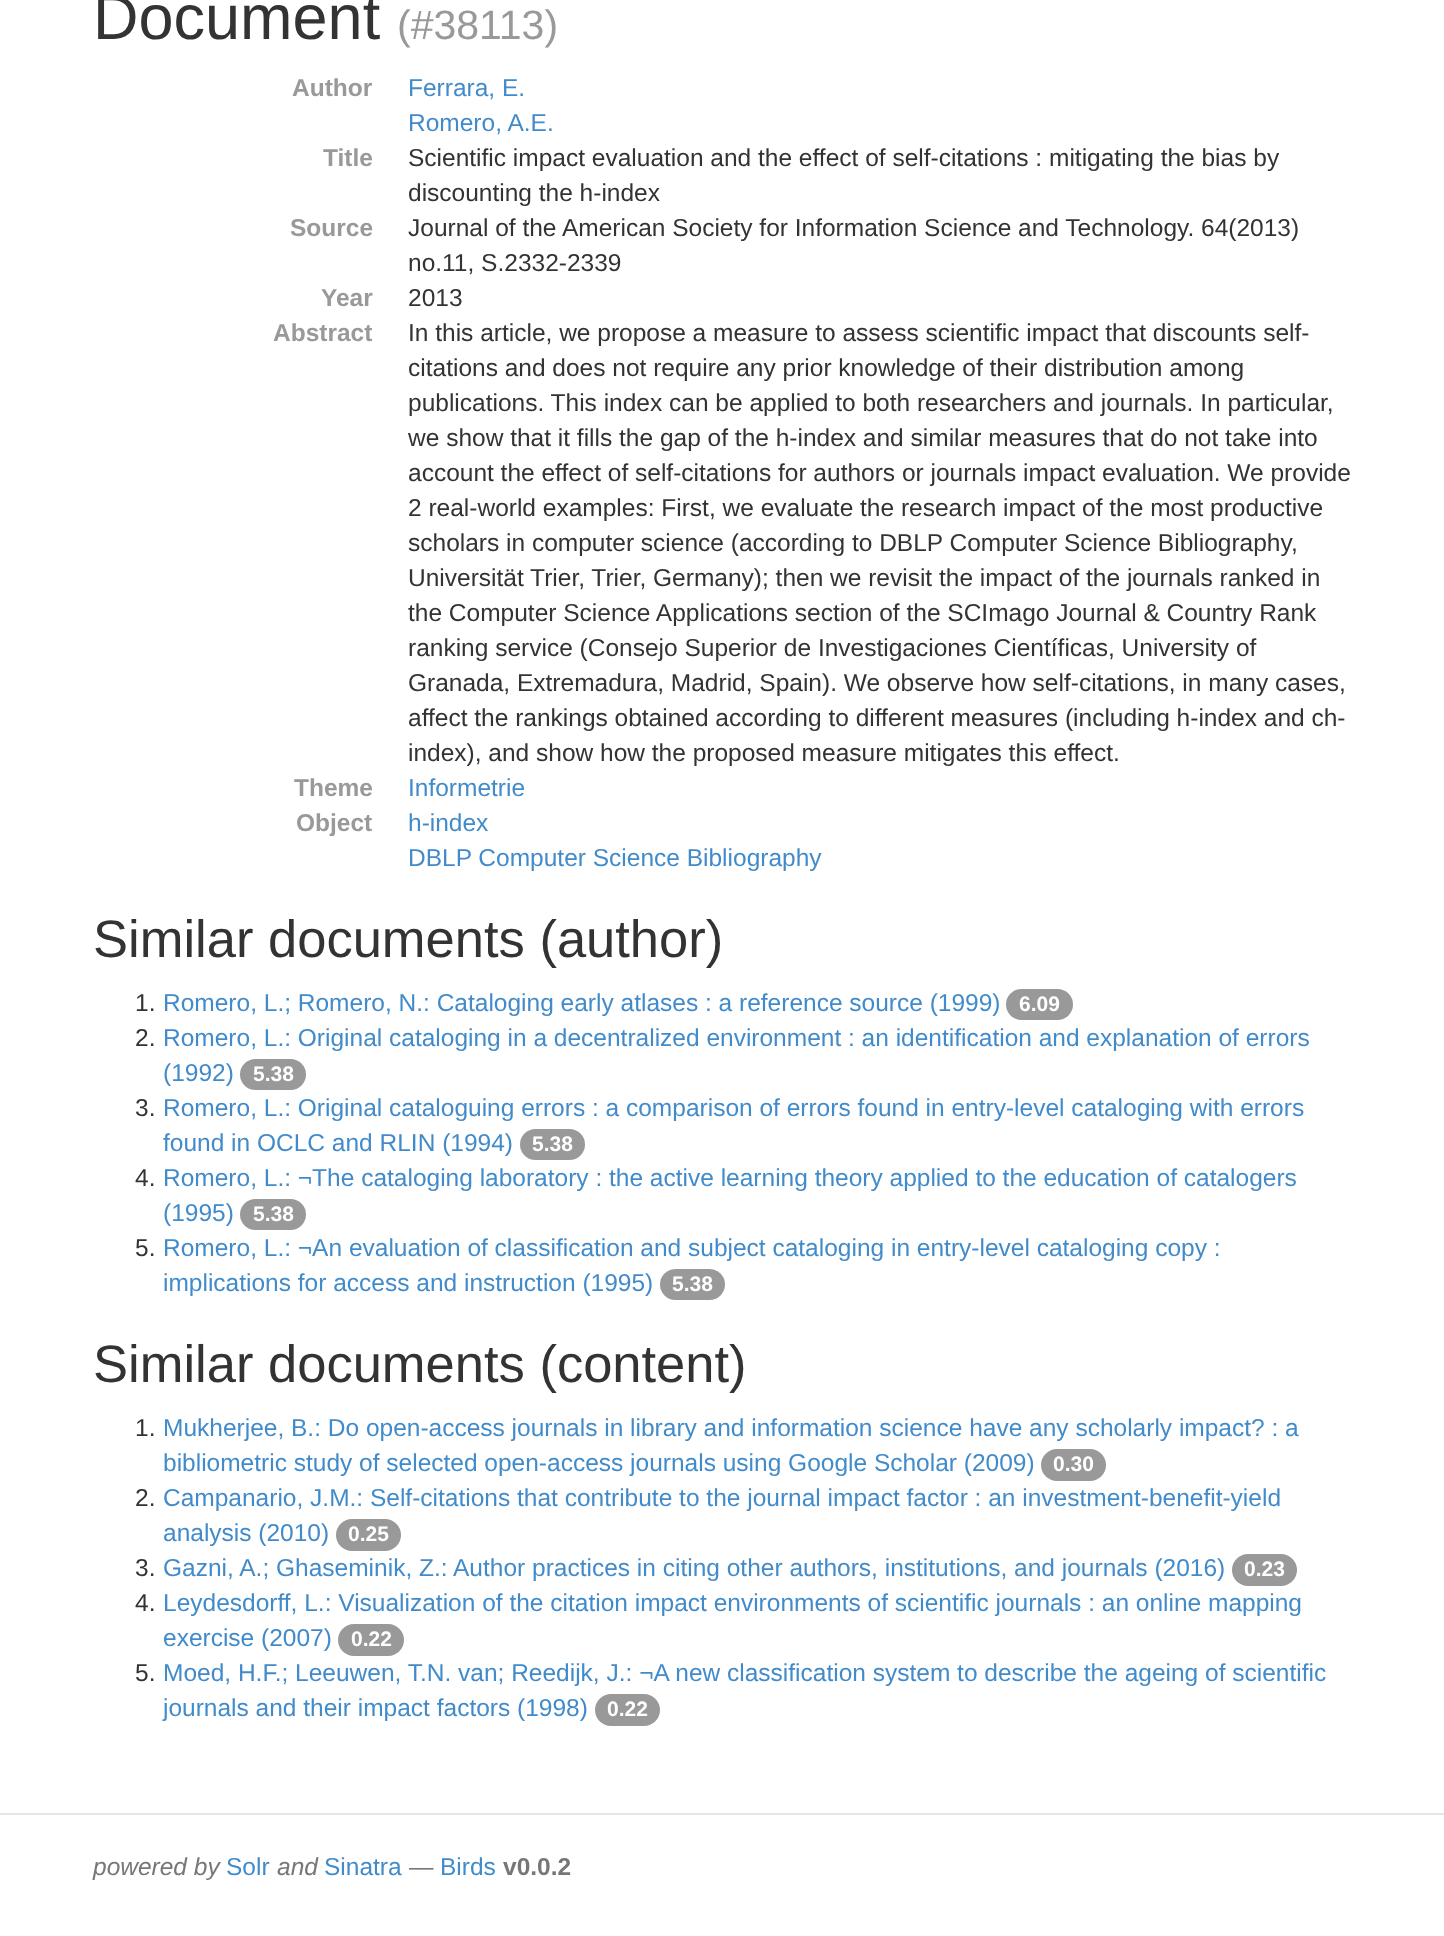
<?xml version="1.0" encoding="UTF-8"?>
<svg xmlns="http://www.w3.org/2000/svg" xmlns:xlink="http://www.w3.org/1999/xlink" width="1444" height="1936">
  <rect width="100%" height="100%" fill="#ffffff" />
  <rect x="1006" y="989" width="67" height="31" rx="15.5" fill="#999999" />
  <rect x="240" y="1059" width="66" height="31" rx="15.5" fill="#999999" />
  <rect x="520" y="1129" width="65" height="31" rx="15.5" fill="#999999" />
  <rect x="240" y="1199" width="66" height="31" rx="15.5" fill="#999999" />
  <rect x="660" y="1269" width="65" height="31" rx="15.5" fill="#999999" />
  <rect x="1041" y="1449" width="65" height="32" rx="16" fill="#999999" />
  <rect x="336" y="1519" width="65" height="32" rx="16" fill="#999999" />
  <rect x="1232" y="1554" width="65" height="32" rx="16" fill="#999999" />
  <rect x="338" y="1624" width="66" height="32" rx="16" fill="#999999" />
  <rect x="595" y="1694" width="65" height="32" rx="16" fill="#999999" />
  <rect y="1813" width="1444" height="2" fill="#e5e5e5" />
  <text x="93" y="39" style="font-family: Liberation Sans; font-size: 63px; fill: #333333">Document</text>
  <text x="397" y="39" style="font-family: Liberation Sans; font-size: 41px; fill: #999999">(#38113)</text>
  <text x="292" y="96" style="font-family: Liberation Sans; font-size: 24.5px; font-weight: bold; fill: #999999">Author</text>
  <text x="408" y="96" style="font-family: Liberation Sans; font-size: 24.5px; fill: #428bca">Ferrara, E.</text>
  <text x="408" y="131" style="font-family: Liberation Sans; font-size: 24.5px; fill: #428bca">Romero, A.E.</text>
  <text x="323" y="166" style="font-family: Liberation Sans; font-size: 24.5px; font-weight: bold; fill: #999999">Title</text>
  <text x="408" y="166" style="font-family: Liberation Sans; font-size: 24.5px; fill: #333333">Scientific impact evaluation and the effect of self-citations : mitigating the bias by</text>
  <text x="408" y="201" style="font-family: Liberation Sans; font-size: 24.5px; fill: #333333">discounting the h-index</text>
  <text x="290" y="236" style="font-family: Liberation Sans; font-size: 24.5px; font-weight: bold; fill: #999999">Source</text>
  <text x="408" y="236" style="font-family: Liberation Sans; font-size: 24.5px; fill: #333333">Journal of the American Society for Information Science and Technology. 64(2013)</text>
  <text x="408" y="271" style="font-family: Liberation Sans; font-size: 24.5px; fill: #333333">no.11, S.2332-2339</text>
  <text x="321" y="306" style="font-family: Liberation Sans; font-size: 24.5px; font-weight: bold; fill: #999999">Year</text>
  <text x="408" y="306" style="font-family: Liberation Sans; font-size: 24.5px; fill: #333333">2013</text>
  <text x="273" y="341" style="font-family: Liberation Sans; font-size: 24.5px; font-weight: bold; fill: #999999">Abstract</text>
  <text x="408" y="341" style="font-family: Liberation Sans; font-size: 24.5px; fill: #333333">In this article, we propose a measure to assess scientific impact that discounts self-</text>
  <text x="408" y="376" style="font-family: Liberation Sans; font-size: 24.5px; fill: #333333">citations and does not require any prior knowledge of their distribution among</text>
  <text x="408" y="411" style="font-family: Liberation Sans; font-size: 24.5px; fill: #333333">publications. This index can be applied to both researchers and journals. In particular,</text>
  <text x="408" y="446" style="font-family: Liberation Sans; font-size: 24.5px; fill: #333333">we show that it fills the gap of the h-index and similar measures that do not take into</text>
  <text x="408" y="481" style="font-family: Liberation Sans; font-size: 24.5px; fill: #333333">account the effect of self-citations for authors or journals impact evaluation. We provide</text>
  <text x="408" y="516" style="font-family: Liberation Sans; font-size: 24.5px; fill: #333333">2 real-world examples: First, we evaluate the research impact of the most productive</text>
  <text x="408" y="551" style="font-family: Liberation Sans; font-size: 24.5px; fill: #333333">scholars in computer science (according to DBLP Computer Science Bibliography,</text>
  <text x="408" y="586" style="font-family: Liberation Sans; font-size: 24.5px; fill: #333333">Universität Trier, Trier, Germany); then we revisit the impact of the journals ranked in</text>
  <text x="408" y="621" style="font-family: Liberation Sans; font-size: 24.5px; fill: #333333">the Computer Science Applications section of the SCImago Journal &amp; Country Rank</text>
  <text x="408" y="656" style="font-family: Liberation Sans; font-size: 24.5px; fill: #333333">ranking service (Consejo Superior de Investigaciones Científicas, University of</text>
  <text x="408" y="691" style="font-family: Liberation Sans; font-size: 24.5px; fill: #333333">Granada, Extremadura, Madrid, Spain). We observe how self-citations, in many cases,</text>
  <text x="408" y="726" style="font-family: Liberation Sans; font-size: 24.5px; fill: #333333">affect the rankings obtained according to different measures (including h-index and ch-</text>
  <text x="408" y="761" style="font-family: Liberation Sans; font-size: 24.5px; fill: #333333">index), and show how the proposed measure mitigates this effect.</text>
  <text x="294" y="796" style="font-family: Liberation Sans; font-size: 24.5px; font-weight: bold; fill: #999999">Theme</text>
  <text x="408" y="796" style="font-family: Liberation Sans; font-size: 24.5px; fill: #428bca">Informetrie</text>
  <text x="296" y="831" style="font-family: Liberation Sans; font-size: 24.5px; font-weight: bold; fill: #999999">Object</text>
  <text x="408" y="831" style="font-family: Liberation Sans; font-size: 24.5px; fill: #428bca">h-index</text>
  <text x="408" y="866" style="font-family: Liberation Sans; font-size: 24.5px; fill: #428bca">DBLP Computer Science Bibliography</text>
  <text x="93" y="957" style="font-family: Liberation Sans; font-size: 52.5px; fill: #333333">Similar documents (author)</text>
  <text x="135" y="1011" style="font-family: Liberation Sans; font-size: 24.5px; fill: #333333">1.</text>
  <text x="163" y="1011" style="font-family: Liberation Sans; font-size: 24.5px; fill: #428bca">Romero, L.; Romero, N.: Cataloging early atlases : a reference source (1999)</text>
  <text x="1019" y="1011" style="font-family: Liberation Sans; font-size: 21px; font-weight: bold; fill: #ffffff">6.09</text>
  <text x="135" y="1046" style="font-family: Liberation Sans; font-size: 24.5px; fill: #333333">2.</text>
  <text x="163" y="1046" style="font-family: Liberation Sans; font-size: 24.5px; fill: #428bca">Romero, L.: Original cataloging in a decentralized environment : an identification and explanation of errors</text>
  <text x="163" y="1081" style="font-family: Liberation Sans; font-size: 24.5px; fill: #428bca">(1992)</text>
  <text x="253" y="1081" style="font-family: Liberation Sans; font-size: 21px; font-weight: bold; fill: #ffffff">5.38</text>
  <text x="135" y="1116" style="font-family: Liberation Sans; font-size: 24.5px; fill: #333333">3.</text>
  <text x="163" y="1116" style="font-family: Liberation Sans; font-size: 24.5px; fill: #428bca">Romero, L.: Original cataloguing errors : a comparison of errors found in entry-level cataloging with errors</text>
  <text x="163" y="1151" style="font-family: Liberation Sans; font-size: 24.5px; fill: #428bca">found in OCLC and RLIN (1994)</text>
  <text x="532" y="1151" style="font-family: Liberation Sans; font-size: 21px; font-weight: bold; fill: #ffffff">5.38</text>
  <text x="135" y="1186" style="font-family: Liberation Sans; font-size: 24.5px; fill: #333333">4.</text>
  <text x="163" y="1186" style="font-family: Liberation Sans; font-size: 24.5px; fill: #428bca">Romero, L.: ¬The cataloging laboratory : the active learning theory applied to the education of catalogers</text>
  <text x="163" y="1221" style="font-family: Liberation Sans; font-size: 24.5px; fill: #428bca">(1995)</text>
  <text x="253" y="1221" style="font-family: Liberation Sans; font-size: 21px; font-weight: bold; fill: #ffffff">5.38</text>
  <text x="135" y="1256" style="font-family: Liberation Sans; font-size: 24.5px; fill: #333333">5.</text>
  <text x="163" y="1256" style="font-family: Liberation Sans; font-size: 24.5px; fill: #428bca">Romero, L.: ¬An evaluation of classification and subject cataloging in entry-level cataloging copy :</text>
  <text x="163" y="1291" style="font-family: Liberation Sans; font-size: 24.5px; fill: #428bca">implications for access and instruction (1995)</text>
  <text x="672" y="1291" style="font-family: Liberation Sans; font-size: 21px; font-weight: bold; fill: #ffffff">5.38</text>
  <text x="93" y="1382" style="font-family: Liberation Sans; font-size: 52.5px; fill: #333333">Similar documents (content)</text>
  <text x="135" y="1436" style="font-family: Liberation Sans; font-size: 24.5px; fill: #333333">1.</text>
  <text x="163" y="1436" style="font-family: Liberation Sans; font-size: 24.5px; fill: #428bca">Mukherjee, B.: Do open-access journals in library and information science have any scholarly impact? : a</text>
  <text x="163" y="1471" style="font-family: Liberation Sans; font-size: 24.5px; fill: #428bca">bibliometric study of selected open-access journals using Google Scholar (2009)</text>
  <text x="1053" y="1471" style="font-family: Liberation Sans; font-size: 21px; font-weight: bold; fill: #ffffff">0.30</text>
  <text x="135" y="1506" style="font-family: Liberation Sans; font-size: 24.5px; fill: #333333">2.</text>
  <text x="163" y="1506" style="font-family: Liberation Sans; font-size: 24.5px; fill: #428bca">Campanario, J.M.: Self-citations that contribute to the journal impact factor : an investment-benefit-yield</text>
  <text x="163" y="1541" style="font-family: Liberation Sans; font-size: 24.5px; fill: #428bca">analysis (2010)</text>
  <text x="348" y="1541" style="font-family: Liberation Sans; font-size: 21px; font-weight: bold; fill: #ffffff">0.25</text>
  <text x="135" y="1576" style="font-family: Liberation Sans; font-size: 24.5px; fill: #333333">3.</text>
  <text x="163" y="1576" style="font-family: Liberation Sans; font-size: 24.5px; fill: #428bca">Gazni, A.; Ghaseminik, Z.: Author practices in citing other authors, institutions, and journals (2016)</text>
  <text x="1244" y="1576" style="font-family: Liberation Sans; font-size: 21px; font-weight: bold; fill: #ffffff">0.23</text>
  <text x="135" y="1611" style="font-family: Liberation Sans; font-size: 24.5px; fill: #333333">4.</text>
  <text x="163" y="1611" style="font-family: Liberation Sans; font-size: 24.5px; fill: #428bca">Leydesdorff, L.: Visualization of the citation impact environments of scientific journals : an online mapping</text>
  <text x="163" y="1646" style="font-family: Liberation Sans; font-size: 24.5px; fill: #428bca">exercise (2007)</text>
  <text x="351" y="1646" style="font-family: Liberation Sans; font-size: 21px; font-weight: bold; fill: #ffffff">0.22</text>
  <text x="135" y="1681" style="font-family: Liberation Sans; font-size: 24.5px; fill: #333333">5.</text>
  <text x="163" y="1681" style="font-family: Liberation Sans; font-size: 24.5px; fill: #428bca">Moed, H.F.; Leeuwen, T.N. van; Reedijk, J.: ¬A new classification system to describe the ageing of scientific</text>
  <text x="163" y="1716" style="font-family: Liberation Sans; font-size: 24.5px; fill: #428bca">journals and their impact factors (1998)</text>
  <text x="607" y="1716" style="font-family: Liberation Sans; font-size: 21px; font-weight: bold; fill: #ffffff">0.22</text>
  <text x="93" y="1875" style="font-family: Liberation Sans; font-size: 24.5px; font-style: italic; fill: #777777">powered by</text>
  <text x="226" y="1875" style="font-family: Liberation Sans; font-size: 24.5px; fill: #428bca">Solr</text>
  <text x="277" y="1875" style="font-family: Liberation Sans; font-size: 24.5px; font-style: italic; fill: #777777">and</text>
  <text x="324" y="1875" style="font-family: Liberation Sans; font-size: 24.5px; fill: #428bca">Sinatra</text>
  <text x="409" y="1875" style="font-family: Liberation Sans; font-size: 24.5px; fill: #777777">—</text>
  <text x="440" y="1875" style="font-family: Liberation Sans; font-size: 24.5px; fill: #428bca">Birds</text>
  <text x="503" y="1875" style="font-family: Liberation Sans; font-size: 24.5px; font-weight: bold; fill: #777777">v0.0.2</text>
</svg>
